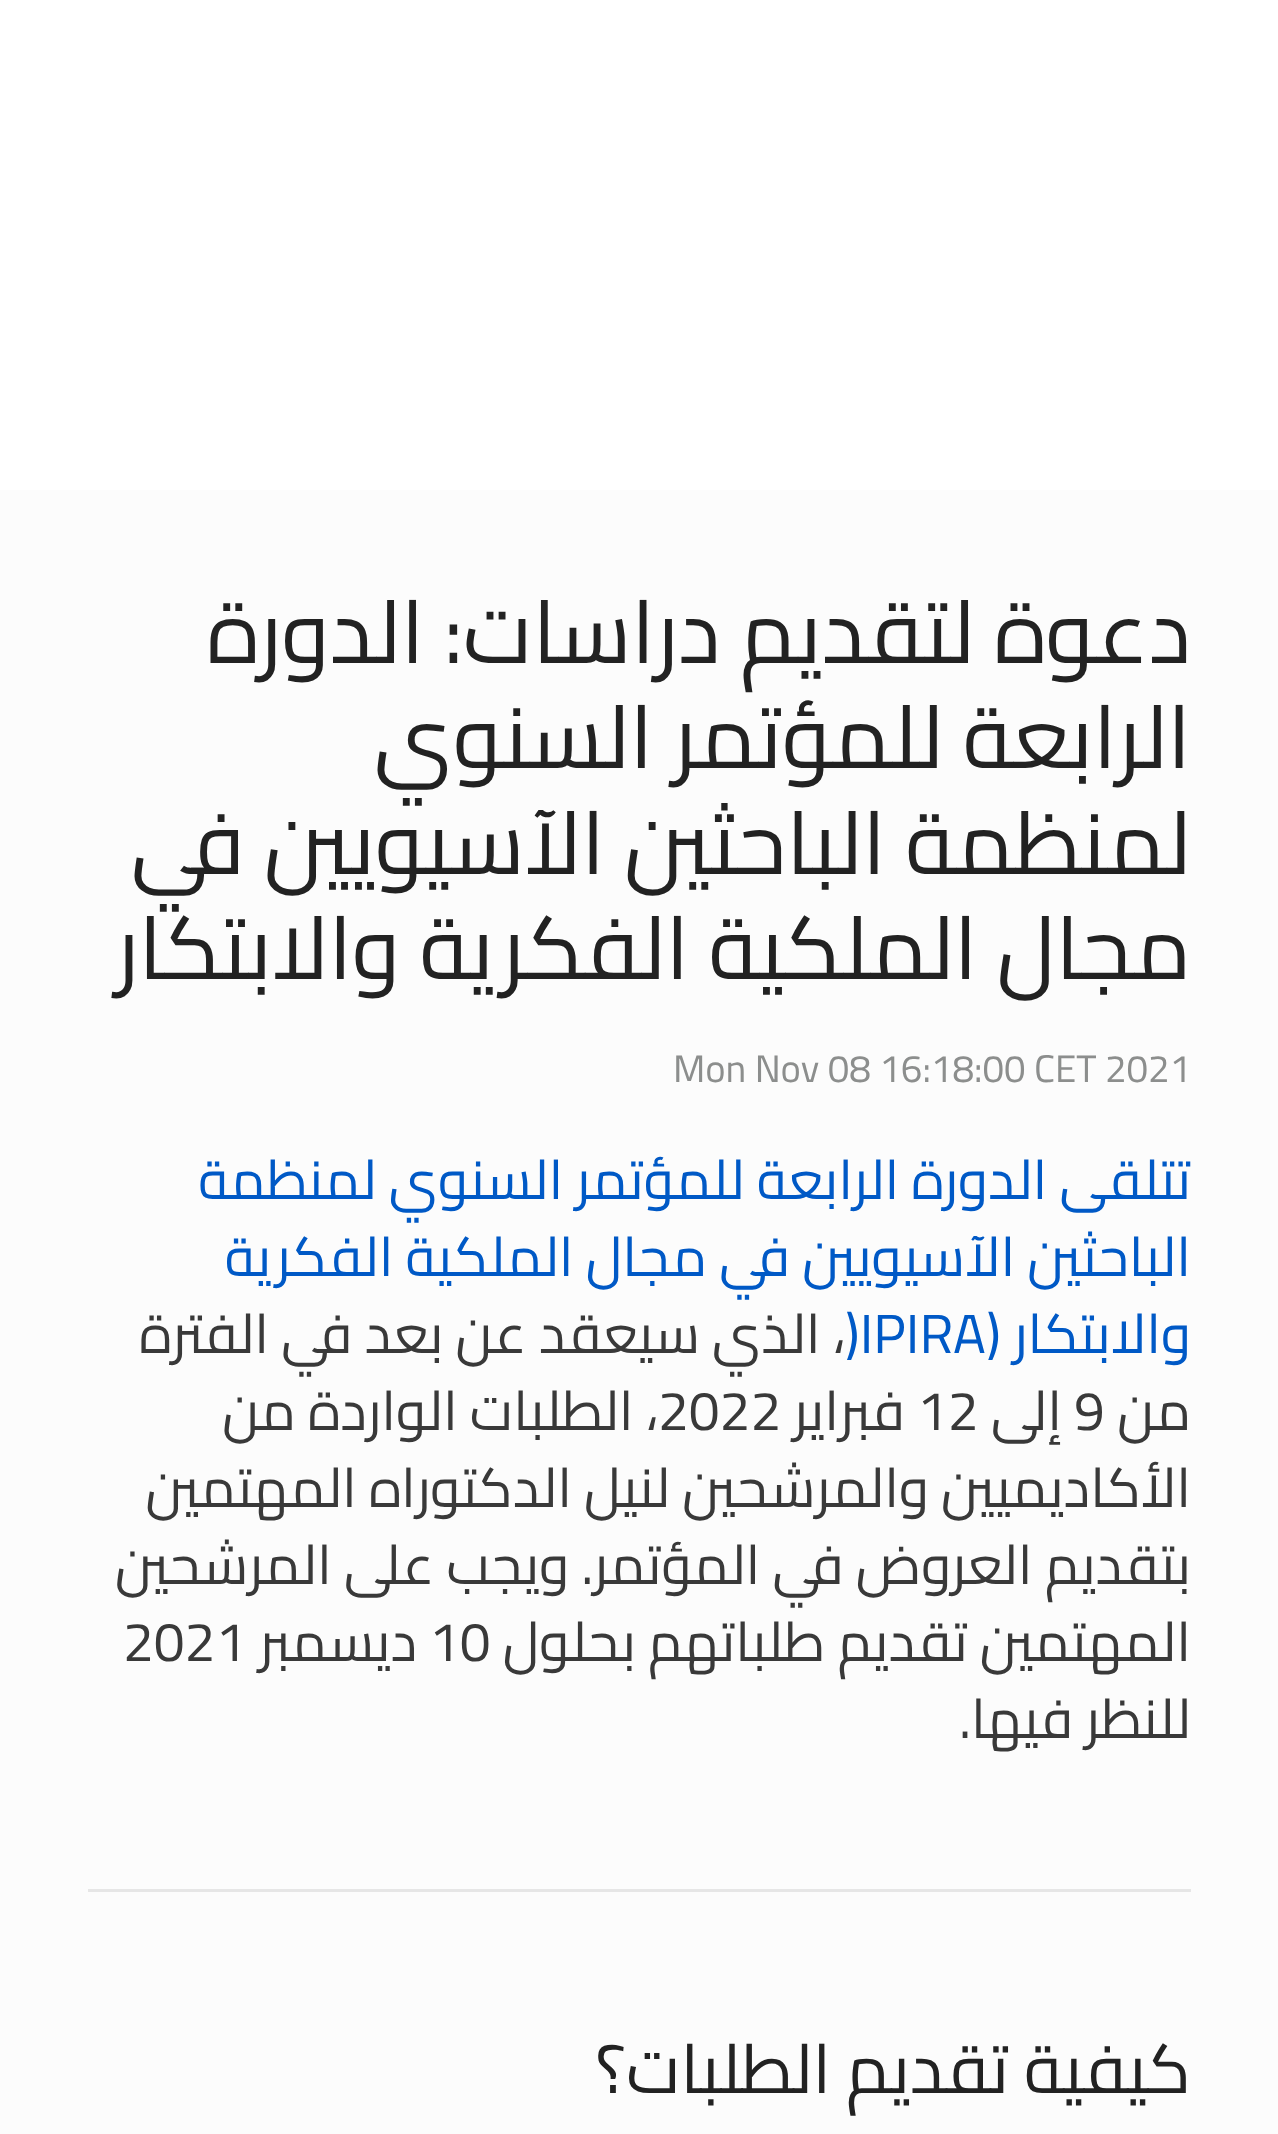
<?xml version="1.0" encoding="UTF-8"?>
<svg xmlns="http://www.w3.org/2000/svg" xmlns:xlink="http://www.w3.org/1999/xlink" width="1278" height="2134">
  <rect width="100%" height="100%" fill="#fcfcfc" />
  <rect width="1278" height="490" fill="#ffffff" />
  <rect x="88" y="1889" width="1103" height="3" fill="#e6e6e6" />
  <text x="1191" y="663" style="font-family: Cairo; font-size: 88px; direction: rtl; fill: #222222">دعوة لتقديم دراسات: الدورة</text>
  <text x="1191" y="768" style="font-family: Cairo; font-size: 88px; direction: rtl; fill: #222222">الرابعة للمؤتمر السنوي</text>
  <text x="1191" y="874" style="font-family: Cairo; font-size: 88px; direction: rtl; fill: #222222">لمنظمة الباحثين الآسيويين في</text>
  <text x="1191" y="979" style="font-family: Cairo; font-size: 88px; direction: rtl; fill: #222222">مجال الملكية الفكرية والابتكار</text>
  <text x="673" y="1082" style="font-family: Cairo; font-size: 38.5px; fill: #8c8e8d">Mon Nov 08 16:18:00 CET 2021</text>
  <text x="1191" y="1199" style="font-family: Cairo; font-size: 55px; direction: rtl; fill: #0059c6">تتلقى الدورة الرابعة للمؤتمر السنوي لمنظمة</text>
  <text x="1191" y="1276" style="font-family: Cairo; font-size: 55px; direction: rtl; fill: #0059c6">الباحثين الآسيويين في مجال الملكية الفكرية</text>
  <text x="1191" y="1353" style="font-family: Cairo; font-size: 55px; direction: rtl; fill: #0059c6">والابتكار (</text>
  <text x="845" y="1353" style="font-family: Cairo; font-size: 55px; fill: #0059c6">)IPIRA</text>
  <text x="845" y="1353" style="font-family: Cairo; font-size: 55px; direction: rtl; fill: #393939">، الذي سيعقد عن بعد في الفترة</text>
  <text x="1191" y="1430" style="font-family: Cairo; font-size: 55px; direction: rtl; fill: #393939">من</text>
  <text x="1074" y="1430" style="font-family: Cairo; font-size: 55px; fill: #393939">9</text>
  <text x="1062" y="1430" style="font-family: Cairo; font-size: 55px; direction: rtl; fill: #393939">إلى</text>
  <text x="917" y="1430" style="font-family: Cairo; font-size: 55px; fill: #393939">12</text>
  <text x="905" y="1430" style="font-family: Cairo; font-size: 55px; direction: rtl; fill: #393939">فبراير</text>
  <text x="658" y="1430" style="font-family: Cairo; font-size: 55px; fill: #393939">2022</text>
  <text x="658" y="1430" style="font-family: Cairo; font-size: 55px; direction: rtl; fill: #393939">، الطلبات الواردة من</text>
  <text x="1191" y="1507" style="font-family: Cairo; font-size: 55px; direction: rtl; fill: #393939">الأكاديميين والمرشحين لنيل الدكتوراه المهتمين</text>
  <text x="1191" y="1584" style="font-family: Cairo; font-size: 55px; direction: rtl; fill: #393939">بتقديم العروض في المؤتمر. ويجب على المرشحين</text>
  <text x="1191" y="1661" style="font-family: Cairo; font-size: 55px; direction: rtl; fill: #393939">المهتمين تقديم طلباتهم بحلول</text>
  <text x="429" y="1661" style="font-family: Cairo; font-size: 55px; fill: #393939">10</text>
  <text x="417" y="1661" style="font-family: Cairo; font-size: 55px; direction: rtl; fill: #393939">ديسمبر</text>
  <text x="123" y="1661" style="font-family: Cairo; font-size: 55px; fill: #393939">2021</text>
  <text x="1191" y="1738" style="font-family: Cairo; font-size: 55px; direction: rtl; fill: #393939">للنظر فيها.</text>
  <text x="1191" y="2093" style="font-family: Cairo; font-size: 68.75px; direction: rtl; fill: #222222">كيفية تقديم الطلبات؟</text>
</svg>
